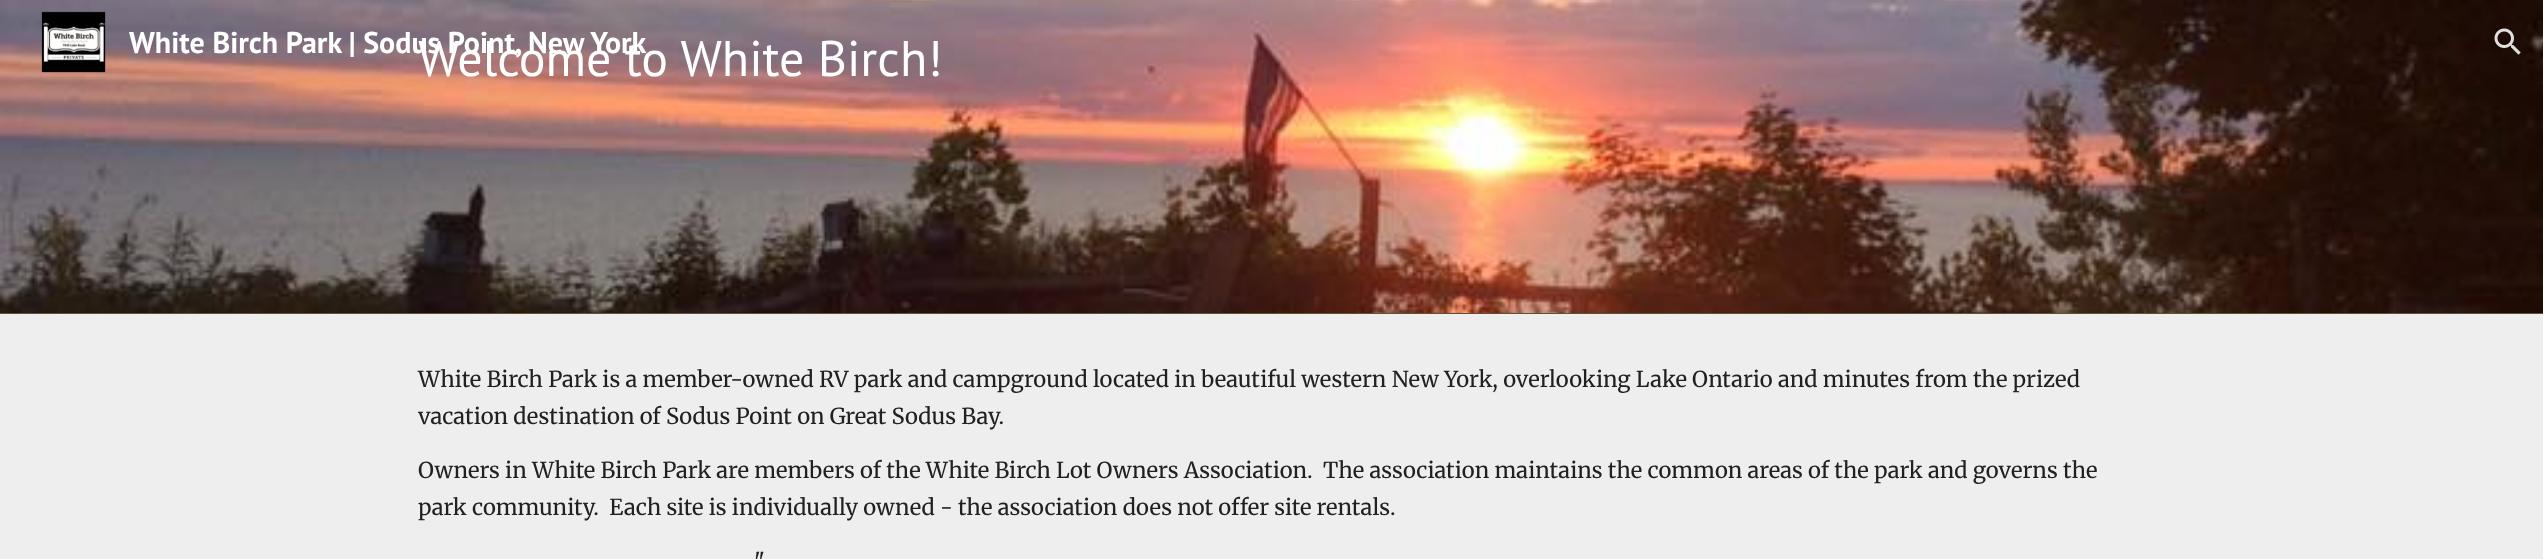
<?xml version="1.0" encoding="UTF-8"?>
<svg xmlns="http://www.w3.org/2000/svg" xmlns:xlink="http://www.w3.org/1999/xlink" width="2543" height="559">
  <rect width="100%" height="100%" fill="#5d532f" />
  <image x="0" y="0" width="2543" height="313" xlink:href="image3.png" />
  <image x="41" y="11" width="65" height="62" xlink:href="image1.png" />
  <image x="2494" y="28" width="27" height="27" xlink:href="image2.png" />
  <rect y="314" width="2543" height="245" fill="#eeeeee" />
  <text x="418" y="76" style="font-family: PT Sans; font-size: 50px; fill: #ffffff">Welcome to White Birch!</text>
  <text x="129" y="53" style="font-family: PT Sans; font-size: 30px; font-weight: bold; fill: #ffffff">White Birch Park | Sodus Point, New York</text>
  <text x="418" y="387" style="font-family: Merriweather; font-size: 22px; fill: #212121">White Birch Park is a member-owned RV park and campground located in beautiful western New York, overlooking Lake Ontario and minutes from the prized</text>
  <text x="418" y="424" style="font-family: Merriweather; font-size: 22px; fill: #212121">vacation destination of Sodus Point on Great Sodus Bay.</text>
  <text x="418" y="478" style="font-family: Merriweather; font-size: 22px; fill: #212121" xml:space="preserve">Owners in White Birch Park are members of the White Birch Lot Owners Association.  The association maintains the common areas of the park and governs the</text>
  <text x="418" y="515" style="font-family: Merriweather; font-size: 22px; fill: #212121" xml:space="preserve">park community.  Each site is individually owned - the association does not offer site rentals.</text>
  <text x="754" y="570" style="font-family: Merriweather; font-size: 22px; fill: #212121">"</text>
</svg>
